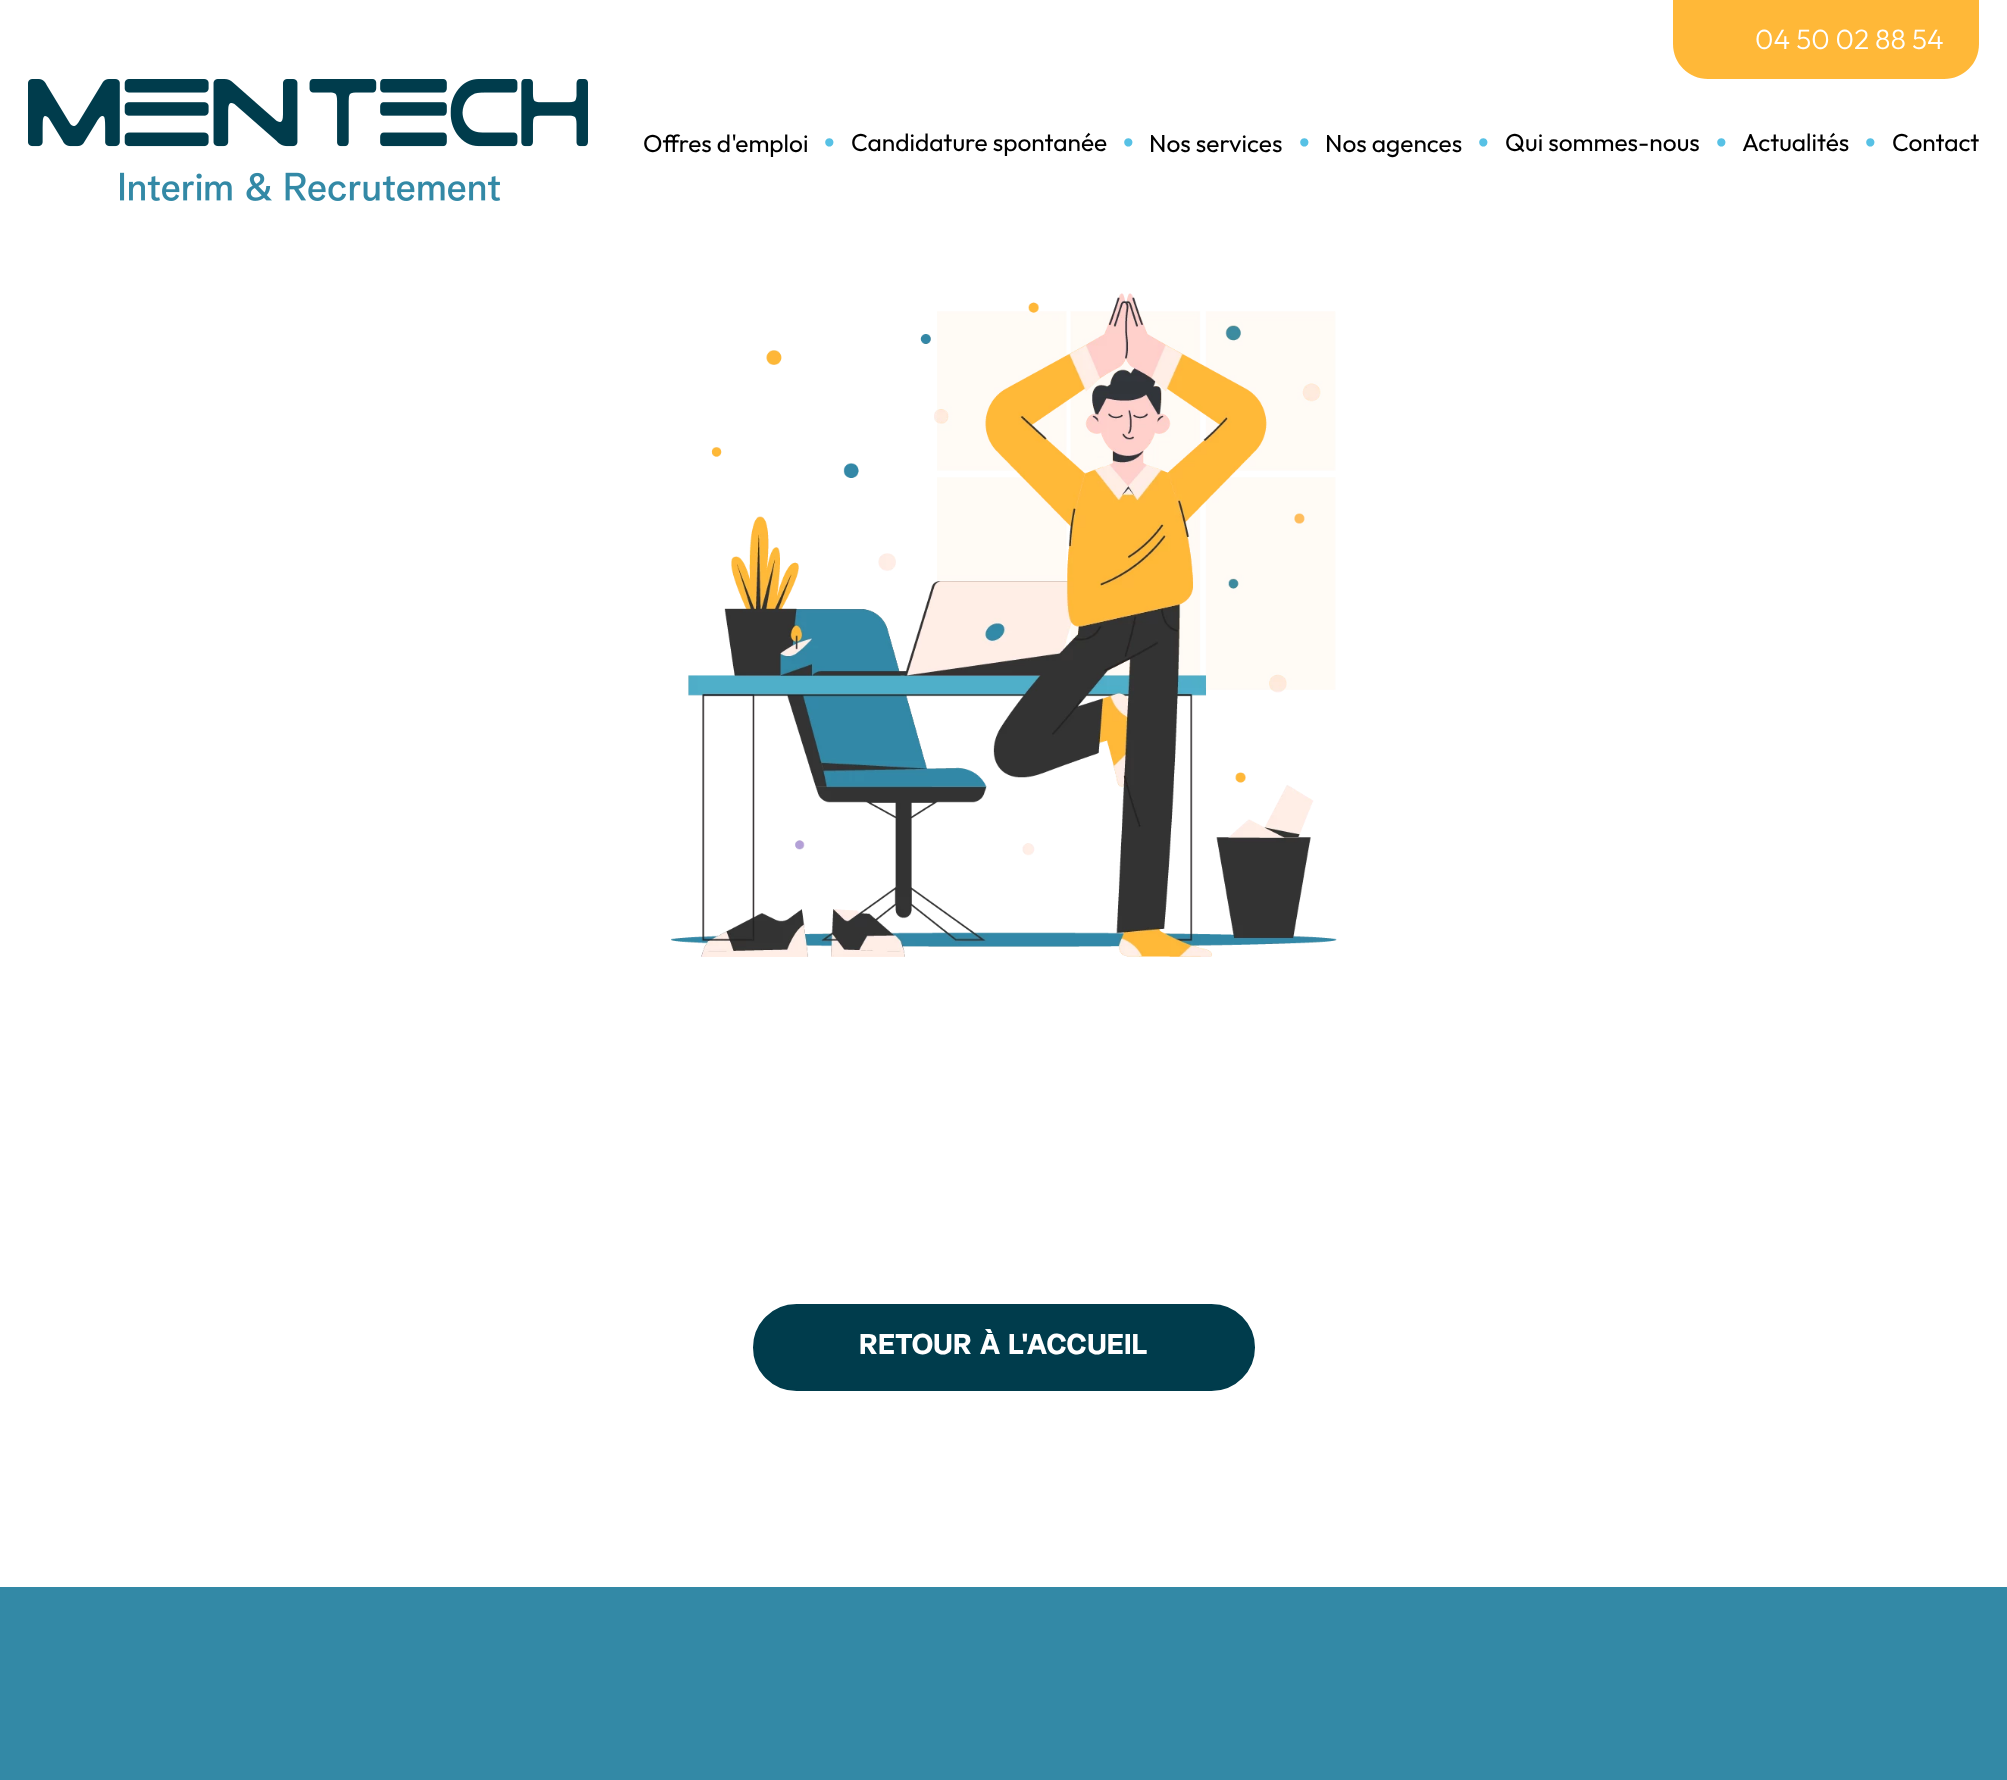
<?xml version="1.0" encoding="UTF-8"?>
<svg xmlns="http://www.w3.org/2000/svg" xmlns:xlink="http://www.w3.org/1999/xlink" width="2007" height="1780">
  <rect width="100%" height="100%" fill="#ffffff" />
  <path d="M 1673 0 h 306 v 44 c 0 19.5 -15.5 35 -35 35 h -236 c -19.5 0 -35 -15.5 -35 -35 z" fill="#ffb838" />
  <image x="28" y="79" width="560" height="122" xlink:href="image1.png" />
  <image x="671" y="293" width="666" height="664" xlink:href="image2.png" />
  <rect x="754" y="1305" width="500" height="85" rx="42.5" fill="#003c4c" stroke="#003c4c" stroke-width="2" />
  <rect y="1587" width="2007" height="193" fill="#3389a6" />
  <text x="1755" y="49" style="font-family: Outfit; font-size: 28px; font-weight: 300; fill: #ffffff">04 50 02 88 54</text>
  <text x="643" y="152" style="font-family: Outfit; font-size: 24.5px; fill: #000000">Offres d'emploi</text>
  <text x="822" y="159" style="font-family: Outfit; font-size: 46px; font-weight: 300; fill: #57c1e5">•</text>
  <text x="851" y="151" style="font-family: Outfit; font-size: 24.5px; fill: #000000">Candidature spontanée</text>
  <text x="1121" y="159" style="font-family: Outfit; font-size: 46px; font-weight: 300; fill: #57c1e5">•</text>
  <text x="1149" y="152" style="font-family: Outfit; font-size: 24.5px; fill: #000000">Nos services</text>
  <text x="1297" y="159" style="font-family: Outfit; font-size: 46px; font-weight: 300; fill: #57c1e5">•</text>
  <text x="1325" y="152" style="font-family: Outfit; font-size: 24.5px; fill: #000000">Nos agences</text>
  <text x="1476" y="159" style="font-family: Outfit; font-size: 46px; font-weight: 300; fill: #57c1e5">•</text>
  <text x="1505" y="151" style="font-family: Outfit; font-size: 24.5px; fill: #000000">Qui sommes-nous</text>
  <text x="1714" y="159" style="font-family: Outfit; font-size: 46px; font-weight: 300; fill: #57c1e5">•</text>
  <text x="1742" y="151" style="font-family: Outfit; font-size: 24.5px; fill: #000000">Actualités</text>
  <text x="1863" y="159" style="font-family: Outfit; font-size: 46px; font-weight: 300; fill: #57c1e5">•</text>
  <text x="1892" y="151" style="font-family: Outfit; font-size: 24.5px; fill: #000000">Contact</text>
  <text x="859" y="1354" style="font-family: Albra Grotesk; font-size: 28px; font-weight: bold; fill: #ffffff">RETOUR À L'ACCUEIL</text>
</svg>
